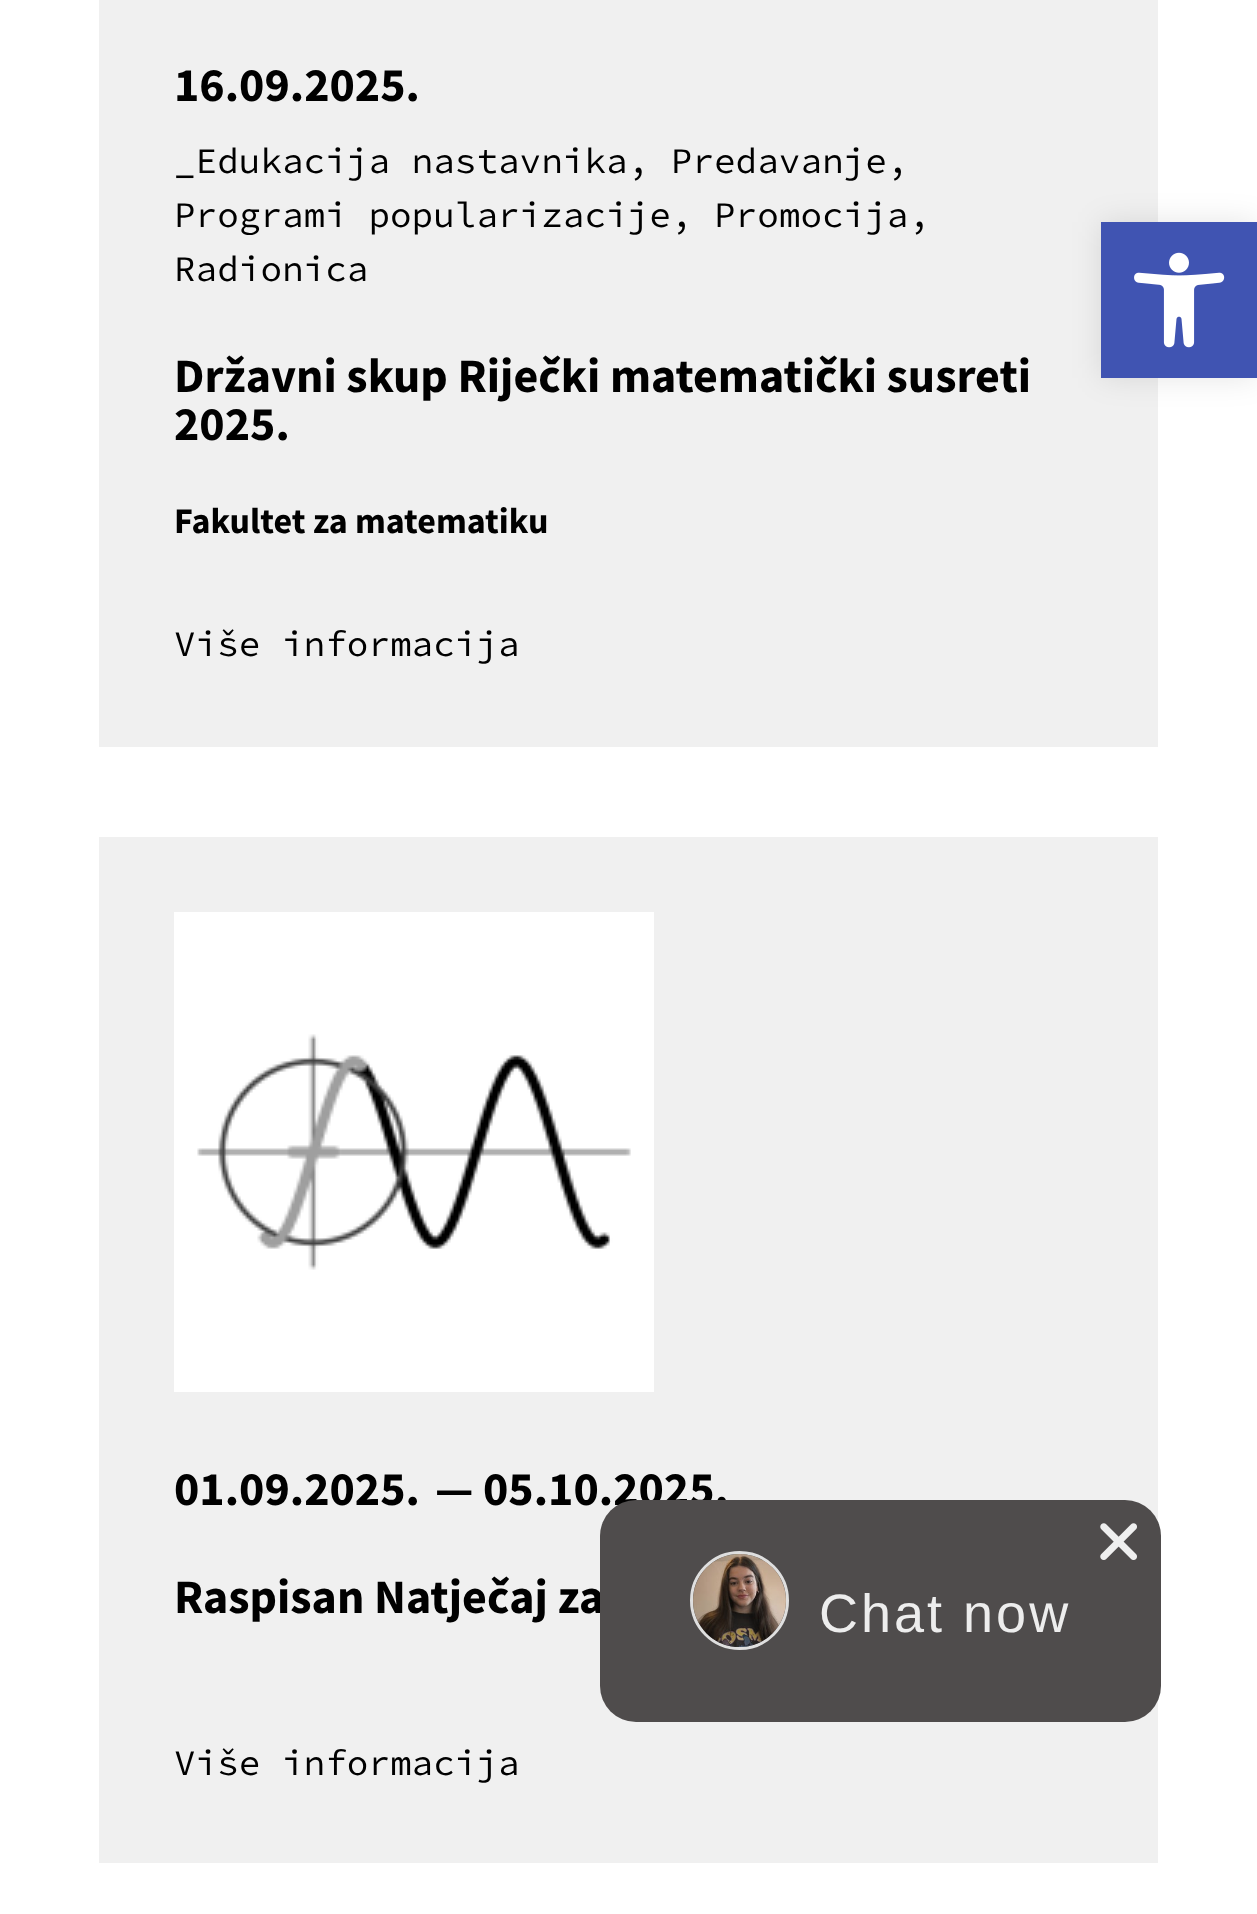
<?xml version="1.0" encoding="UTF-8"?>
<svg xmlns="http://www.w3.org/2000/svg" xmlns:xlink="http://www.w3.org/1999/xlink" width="1257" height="1914">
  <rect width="100%" height="100%" fill="#ffffff" />
  <rect x="99" width="1059" height="747" fill="#f0f0f0" />
  <rect x="99" y="837" width="1059" height="1026" fill="#f0f0f0" />
  <image x="174" y="912" width="480" height="480" xlink:href="image1.png" />
  <rect x="1101" y="222" width="156" height="156" fill="#000000" fill-opacity="0.1" filter="blur(15px)" />
  <rect x="1101" y="222" width="156" height="156" fill="#4054b2" />
  <image x="1134" y="252" width="91" height="96" xlink:href="image2.png" />
  <text x="174" y="101" style="font-family: Source Sans Pro; font-size: 48px; font-weight: bold; fill: #000000">16.09.2025.</text>
  <text x="174" y="173" style="font-family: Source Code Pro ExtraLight; font-size: 36px; fill: #000000">_Edukacija nastavnika, Predavanje,</text>
  <text x="174" y="227" style="font-family: Source Code Pro ExtraLight; font-size: 36px; fill: #000000">Programi popularizacije, Promocija,</text>
  <text x="174" y="281" style="font-family: Source Code Pro ExtraLight; font-size: 36px; fill: #000000">Radionica</text>
  <text x="174" y="392" style="font-family: Source Sans Pro; font-size: 48px; font-weight: bold; fill: #000000">Državni skup Riječki matematički susreti</text>
  <text x="174" y="440" style="font-family: Source Sans Pro; font-size: 48px; font-weight: bold; fill: #000000">2025.</text>
  <text x="174" y="533" style="font-family: Source Sans Pro; font-size: 36px; font-weight: bold; fill: #000000">Fakultet za matematiku</text>
  <text x="174" y="656" style="font-family: Source Code Pro ExtraLight; font-size: 36px; fill: #000000">Više informacija</text>
  <text x="174" y="1505" style="font-family: Source Sans Pro; font-size: 48px; font-weight: bold; fill: #000000">01.09.2025.</text>
  <text x="435" y="1505" style="font-family: Source Sans Pro; font-size: 48px; font-weight: bold; fill: #000000">— 05.10.2025.</text>
  <text x="174" y="1613" style="font-family: Source Sans Pro; font-size: 48px; font-weight: bold; fill: #000000">Raspisan Natječaj za</text>
  <text x="174" y="1775" style="font-family: Source Code Pro ExtraLight; font-size: 36px; fill: #000000">Više informacija</text>
  <rect x="600" y="1500" width="561" height="222" rx="36" fill="#4f4c4c" />
  <image x="1100" y="1523" width="37" height="37" xlink:href="image3.png" />
  <circle cx="739.5" cy="1600.5" r="48" fill="none" stroke="#dfdfdf" stroke-width="3" />
  <image x="693" y="1554" width="93" height="93" xlink:href="image4.png" />
  <text x="819" y="1632" style="font-family: Liberation Sans; font-size: 54px; letter-spacing: 3px; fill: #ededed">Chat now</text>
</svg>
